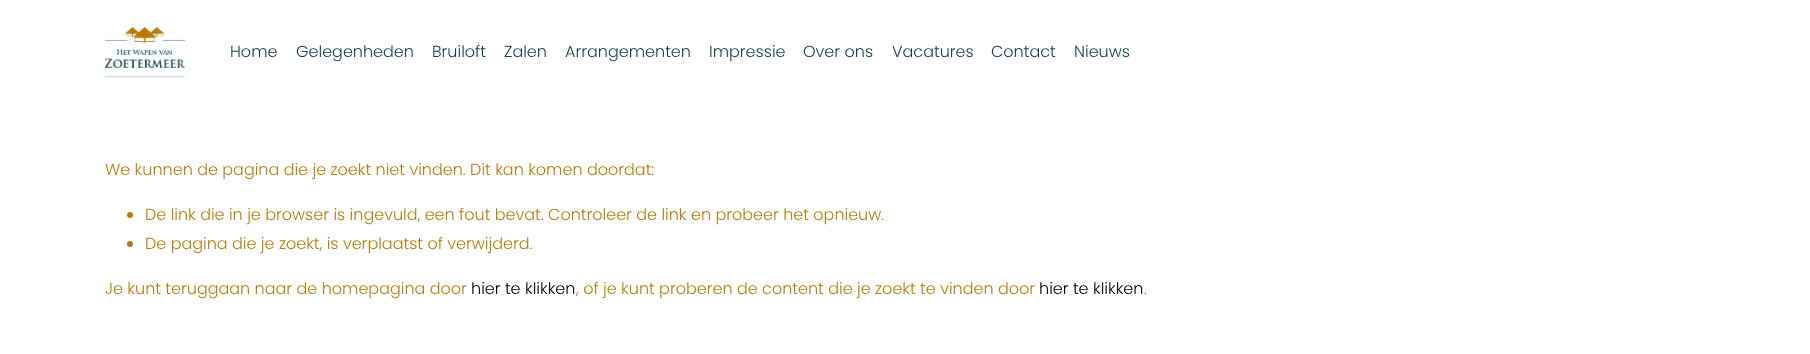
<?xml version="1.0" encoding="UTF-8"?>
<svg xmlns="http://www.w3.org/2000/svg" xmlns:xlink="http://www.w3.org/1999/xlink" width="1810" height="354">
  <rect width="100%" height="100%" fill="#ffffff" />
  <image x="105" y="27" width="80" height="51" xlink:href="image1.png" />
  <circle cx="130" cy="215" r="3" fill="#b77c0c" />
  <circle cx="130" cy="244" r="3" fill="#b77c0c" />
  <text x="230" y="57" style="font-family: Poppins; font-size: 16px; font-weight: 300; fill: #113f4d">Home</text>
  <text x="296" y="57" style="font-family: Poppins; font-size: 16px; font-weight: 300; fill: #113f4d">Gelegenheden</text>
  <text x="432" y="57" style="font-family: Poppins; font-size: 16px; font-weight: 300; fill: #113f4d">Bruiloft</text>
  <text x="504" y="57" style="font-family: Poppins; font-size: 16px; font-weight: 300; fill: #113f4d">Zalen</text>
  <text x="565" y="57" style="font-family: Poppins; font-size: 16px; font-weight: 300; fill: #113f4d">Arrangementen</text>
  <text x="709" y="57" style="font-family: Poppins; font-size: 16px; font-weight: 300; fill: #113f4d">Impressie</text>
  <text x="803" y="57" style="font-family: Poppins; font-size: 16px; font-weight: 300; fill: #113f4d">Over ons</text>
  <text x="892" y="57" style="font-family: Poppins; font-size: 16px; font-weight: 300; fill: #113f4d">Vacatures</text>
  <text x="991" y="57" style="font-family: Poppins; font-size: 16px; font-weight: 300; fill: #113f4d">Contact</text>
  <text x="1074" y="57" style="font-family: Poppins; font-size: 16px; font-weight: 300; fill: #113f4d">Nieuws</text>
  <text x="105" y="175" style="font-family: Poppins; font-size: 16px; font-weight: 300; fill: #b77c0c">We kunnen de pagina die je zoekt niet vinden. Dit kan komen doordat:</text>
  <text x="145" y="220" style="font-family: Poppins; font-size: 16px; font-weight: 300; fill: #b77c0c">De link die in je browser is ingevuld, een fout bevat. Controleer de link en probeer het opnieuw.</text>
  <text x="145" y="249" style="font-family: Poppins; font-size: 16px; font-weight: 300; fill: #b77c0c">De pagina die je zoekt, is verplaatst of verwijderd.</text>
  <text x="105" y="294" style="font-family: Poppins; font-size: 16px; font-weight: 300; fill: #b77c0c">Je kunt teruggaan naar de homepagina door</text>
  <text x="471" y="294" style="font-family: Poppins; font-size: 16px; font-weight: 300; fill: #000000">hier te klikken</text>
  <text x="576" y="294" style="font-family: Poppins; font-size: 16px; font-weight: 300; fill: #b77c0c">, of je kunt proberen de content die je zoekt te vinden door</text>
  <text x="1039" y="294" style="font-family: Poppins; font-size: 16px; font-weight: 300; fill: #000000">hier te klikken</text>
  <text x="1144" y="294" style="font-family: Poppins; font-size: 16px; font-weight: 300; fill: #b77c0c">.</text>
</svg>
